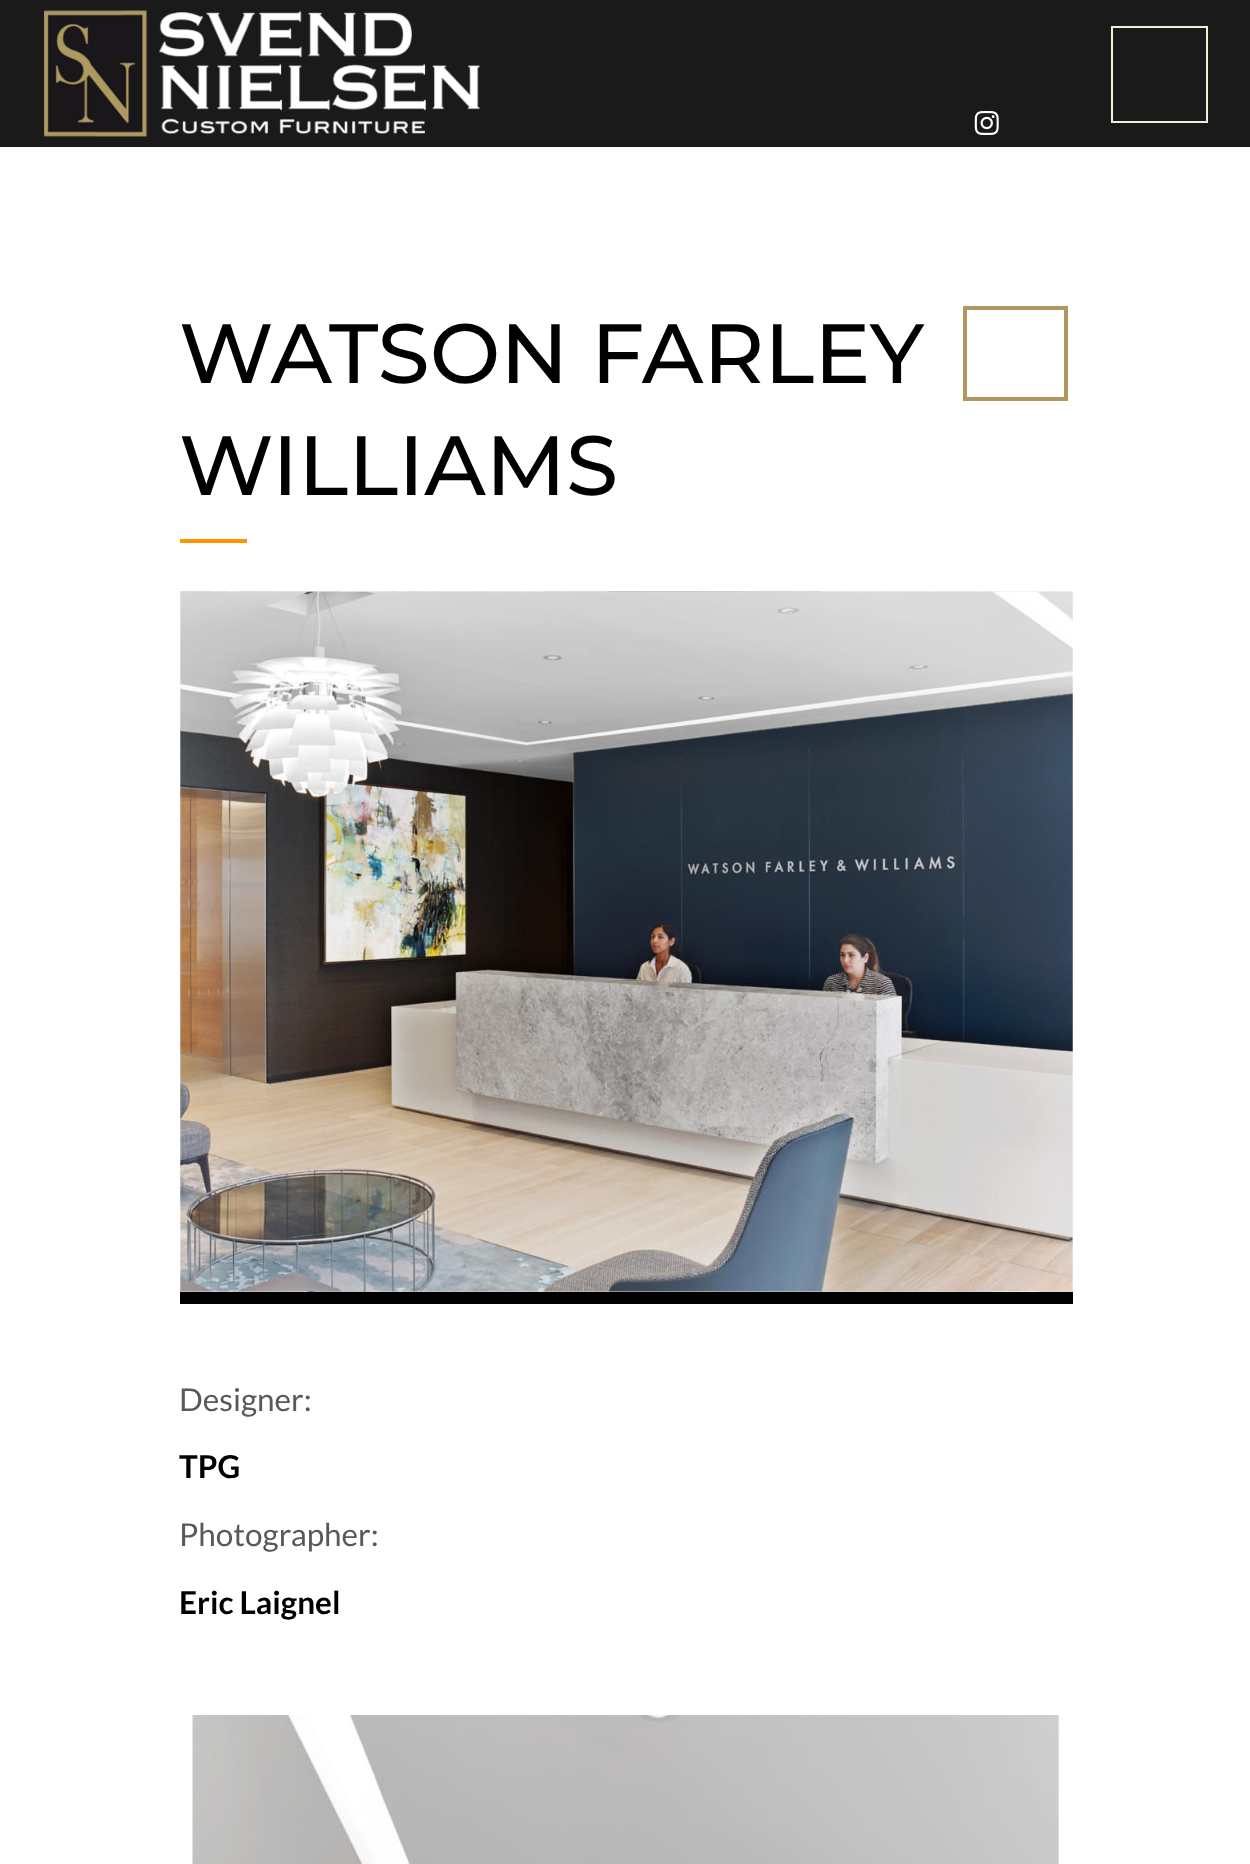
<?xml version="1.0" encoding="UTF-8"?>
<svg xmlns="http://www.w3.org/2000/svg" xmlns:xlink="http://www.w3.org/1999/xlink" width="1250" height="1864">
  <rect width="100%" height="100%" fill="#ffffff" />
  <rect width="1250" height="147" fill="#1a1a1a" />
  <image x="44" y="10" width="436" height="127" xlink:href="image1.png" />
  <image x="974" y="111" width="25" height="24" xlink:href="image2.png" />
  <rect x="1112" y="27" width="95" height="95" fill="none" stroke="#f0f0d8" stroke-width="2" />
  <rect x="965" y="308" width="101" height="91" fill="none" stroke="#ae9860" stroke-width="4" />
  <rect x="180" y="539" width="67" height="4" fill="#ff9600" />
  <image x="180" y="591" width="893" height="701" xlink:href="image3.png" />
  <rect x="180" y="1292" width="893" height="12" fill="#000000" />
  <image x="192" y="1715" width="867" height="149" xlink:href="image4.png" />
  <text x="179" y="383" style="font-family: Montserrat; font-size: 84px; font-weight: 500; fill: #000000">WATSON FARLEY</text>
  <text x="179" y="495" style="font-family: Montserrat; font-size: 84px; font-weight: 500; fill: #000000">WILLIAMS</text>
  <text x="179" y="1411" style="font-family: Lato; font-size: 31.5px; fill: #595959">Designer:</text>
  <text x="179" y="1478" style="font-family: Lato; font-size: 31.5px; font-weight: bold; fill: #000000">TPG</text>
  <text x="179" y="1546" style="font-family: Lato; font-size: 31.5px; fill: #595959">Photographer:</text>
  <text x="179" y="1614" style="font-family: Lato; font-size: 31.5px; font-weight: bold; fill: #000000">Eric Laignel</text>
</svg>
